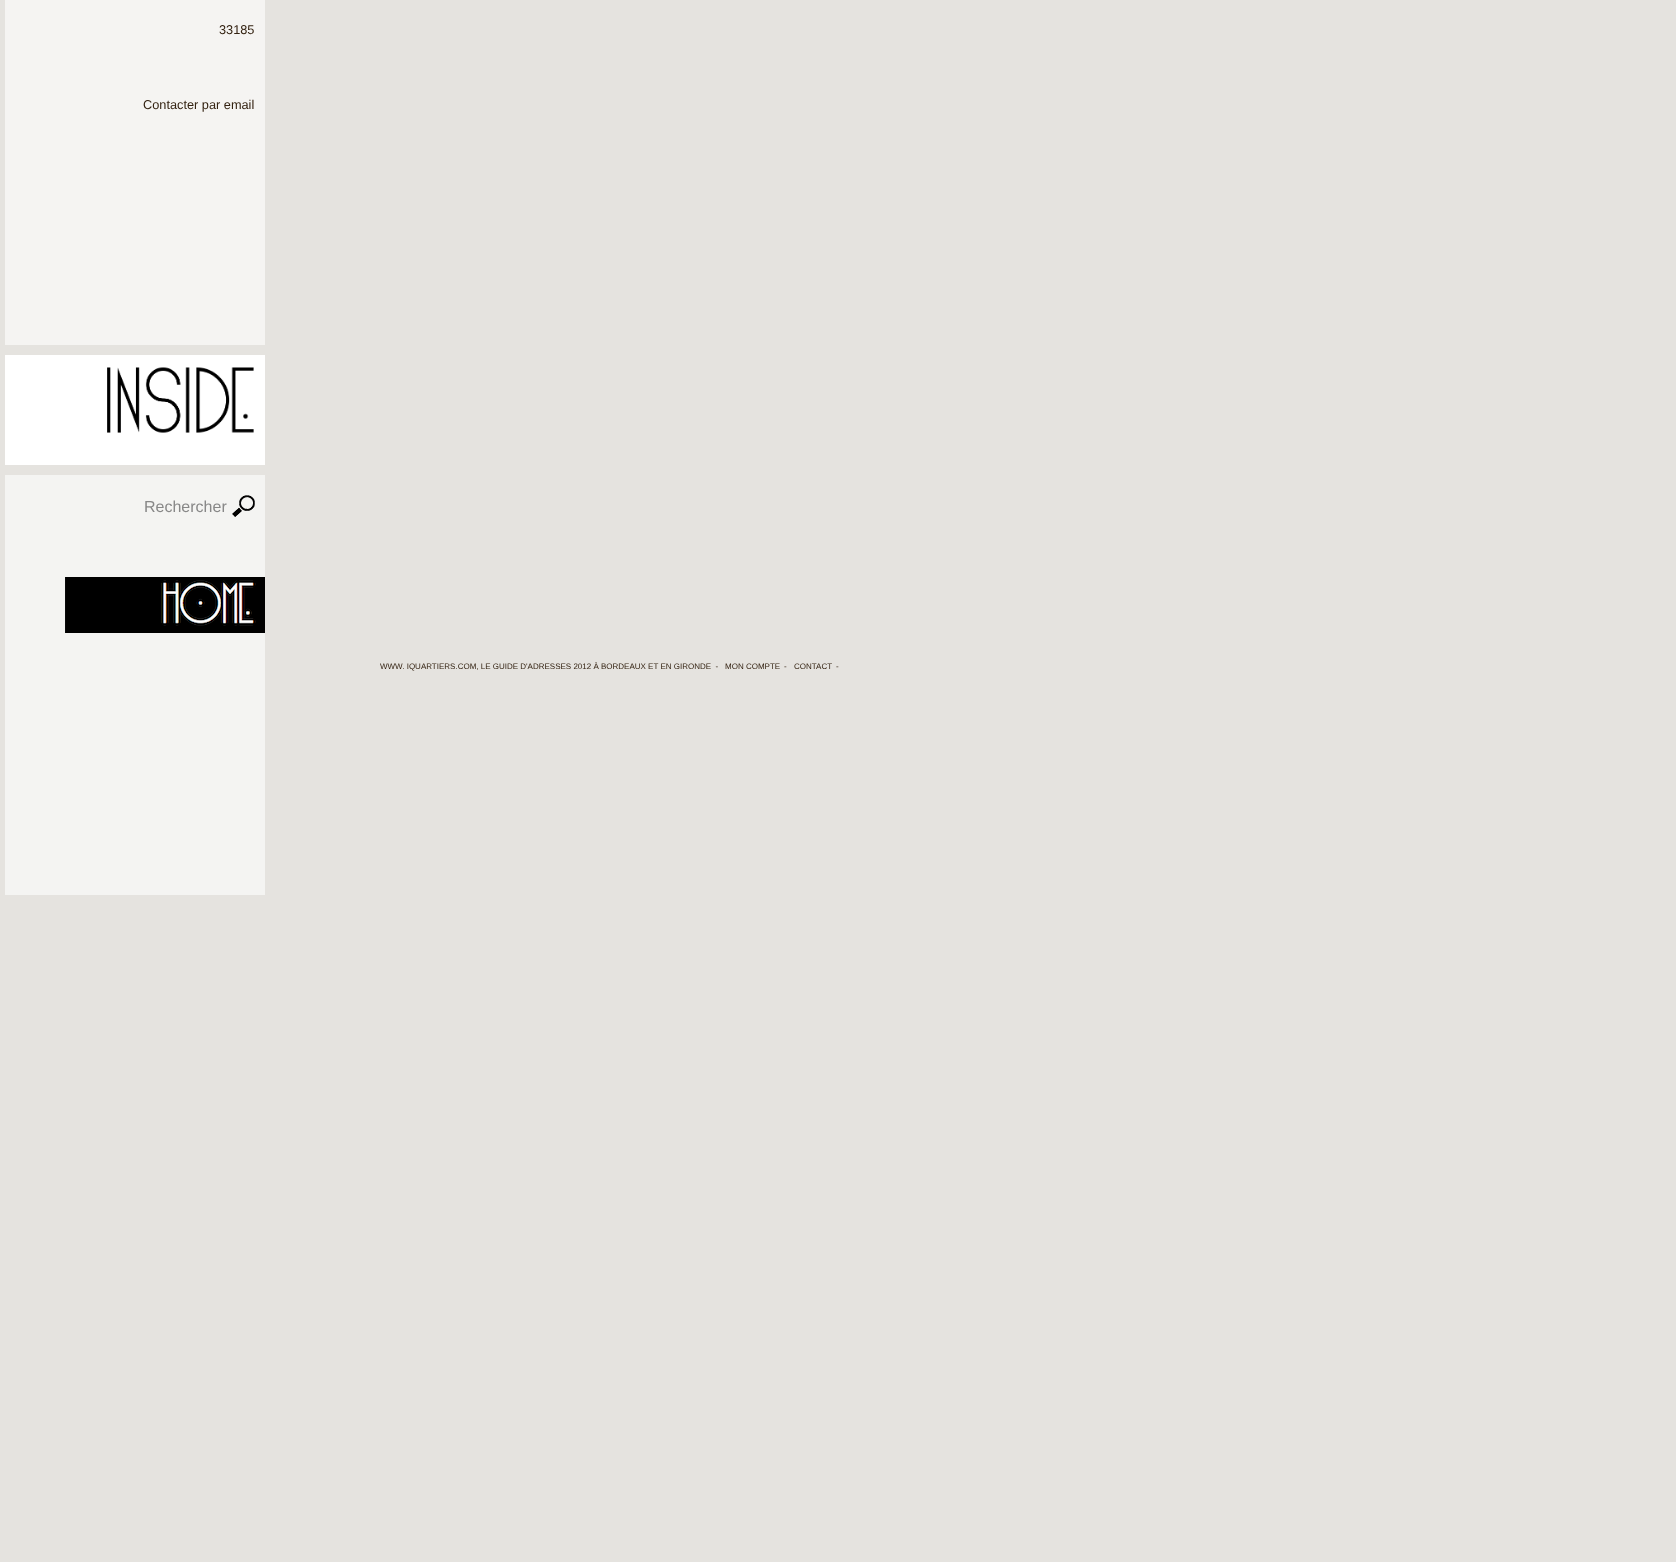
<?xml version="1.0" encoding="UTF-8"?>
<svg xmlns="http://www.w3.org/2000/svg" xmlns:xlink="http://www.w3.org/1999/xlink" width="1676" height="1562">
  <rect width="100%" height="100%" fill="#e5e3df" />
  <rect x="5" width="260" height="345" fill="#f5f4f2" />
  <rect x="5" y="355" width="260" height="110" fill="#ffffff" />
  <rect x="5" y="475" width="260" height="420" fill="#f4f4f2" />
  <image x="107" y="367" width="147" height="66" xlink:href="image1.png" />
  <image x="232" y="495" width="23" height="22" xlink:href="image2.png" />
  <image x="65" y="577" width="200" height="56" xlink:href="image3.png" />
  <text x="219" y="34" style="font-family: Liberation Sans; font-size: 12.75px; fill: #332211">33185</text>
  <text x="143" y="109" style="font-family: Liberation Sans; font-size: 12.75px; fill: #332211">Contacter par email</text>
  <text x="144" y="512" style="font-family: Liberation Sans; font-size: 16px; fill: #888888">Rechercher</text>
  <text x="380" y="669" style="font-family: Liberation Sans; font-size: 8px; fill: #332211" xml:space="preserve">WWW. IQUARTIERS.COM, LE GUIDE D'ADRESSES 2012 À BORDEAUX ET EN GIRONDE  -</text>
  <text x="725" y="669" style="font-family: Liberation Sans; font-size: 8px; fill: #332211">MON COMPTE</text>
  <text x="784" y="669" style="font-family: Liberation Sans; font-size: 8px; fill: #332211">-</text>
  <text x="794" y="669" style="font-family: Liberation Sans; font-size: 8px; fill: #332211">CONTACT</text>
  <text x="836" y="669" style="font-family: Liberation Sans; font-size: 8px; fill: #332211">-</text>
</svg>
